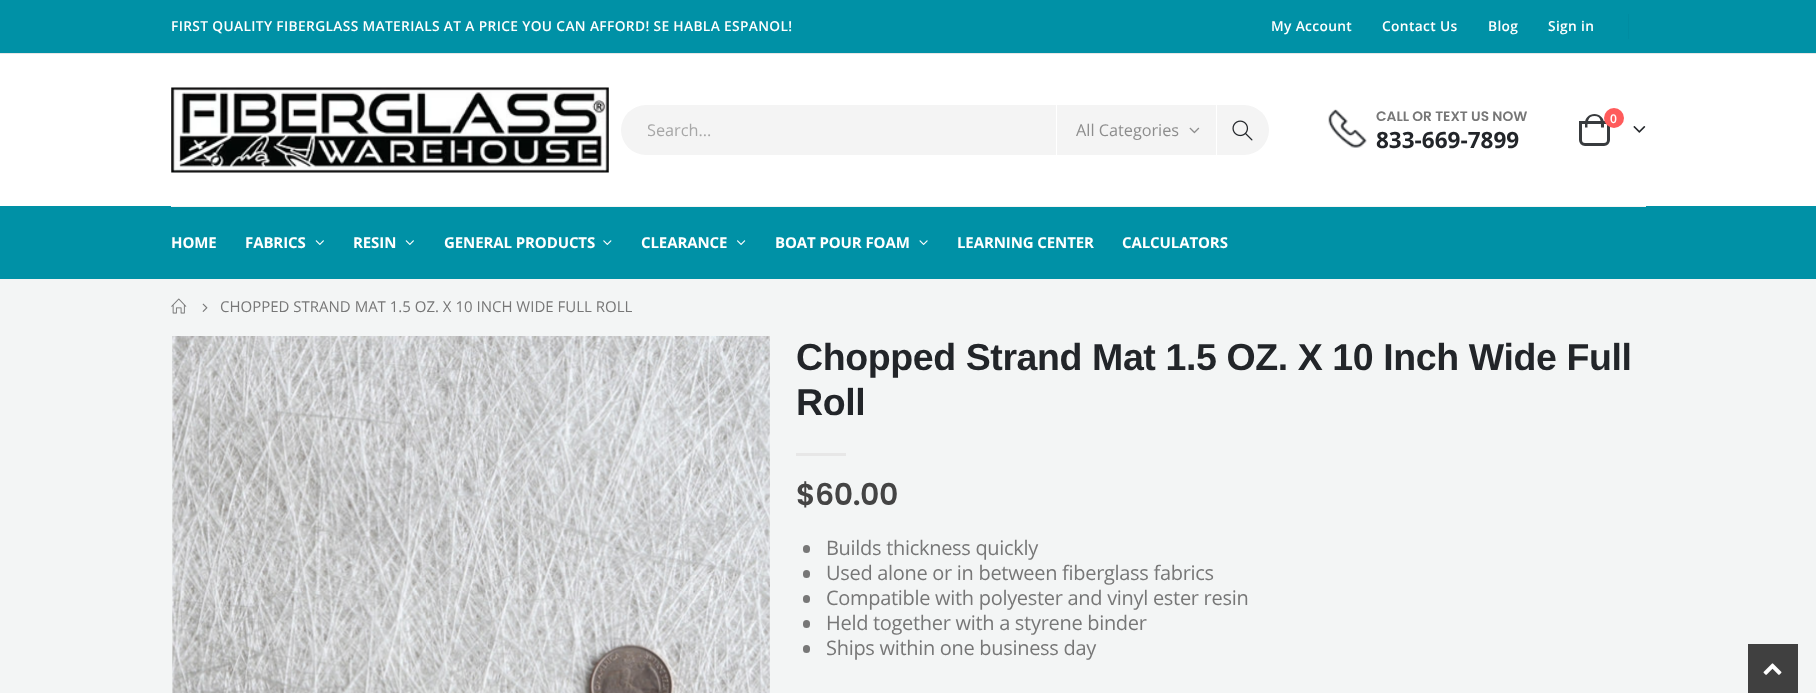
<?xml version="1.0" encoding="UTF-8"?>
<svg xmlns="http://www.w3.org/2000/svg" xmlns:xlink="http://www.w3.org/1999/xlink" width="1816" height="693">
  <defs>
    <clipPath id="clip1"><rect x="648" y="119" width="408" height="22" /></clipPath>
  </defs>
  <rect width="100%" height="100%" fill="#ffffff" />
  <rect y="279" width="1816" height="1" fill="#f4f4f4" />
  <rect width="1816" height="53" fill="#0091a6" />
  <rect x="1628" y="14" width="1" height="25" fill="#008ca1" />
  <rect y="53" width="1816" height="1" fill="#e7e7e7" />
  <image x="171" y="87" width="438" height="86" xlink:href="image1.png" />
  <rect x="621" y="105" width="648" height="50" rx="25" fill="#f4f4f4" />
  <rect x="1216" y="105" width="1" height="50" fill="#ffffff" />
  <rect x="1056" y="105" width="1" height="50" fill="#ffffff" />
  <image x="1189" y="127" width="11" height="7" xlink:href="image2.png" />
  <image x="1232" y="120" width="21" height="21" xlink:href="image3.png" />
  <image x="1328" y="109" width="39" height="39" xlink:href="image4.png" />
  <path d="M 1580.5 122.5 h 28 v 17.5 c 0 2.5 -2 4.5 -4.5 4.5 h -19 c -2.5 0 -4.5 -2 -4.5 -4.5 z" fill="none" stroke="#383b3e" stroke-width="3" />
  <path d="M 1594.5 114 c 5 0 9.5 4 9.5 9 v 4.5 h -19 v -4.5 c 0 -5 4 -9 9.5 -9 z m 0 2 c 7 0 6.5 6.5 6.5 11.5 h -13.5 c 0 -5 0 -11.5 7 -11.5 z" fill="#383b3e" fill-rule="evenodd" />
  <circle cx="1614" cy="118" r="10" fill="#ff5b5b" />
  <image x="1633" y="126" width="13" height="7" xlink:href="image5.png" />
  <rect y="206" width="1816" height="73" fill="#0091a6" />
  <rect x="171" y="206" width="1475" height="1" fill="#f4f4f4" />
  <image x="315" y="240" width="9" height="5" xlink:href="image6.png" />
  <image x="405" y="240" width="9" height="5" xlink:href="image6.png" />
  <image x="603" y="240" width="9" height="5" xlink:href="image7.png" />
  <image x="737" y="240" width="9" height="5" xlink:href="image8.png" />
  <image x="919" y="240" width="9" height="5" xlink:href="image9.png" />
  <rect y="280" width="1816" height="413" fill="#f3f5f5" />
  <image x="171" y="298" width="16" height="16" xlink:href="image10.png" />
  <image x="202" y="303" width="6" height="9" xlink:href="image11.png" />
  <image x="172" y="336" width="598" height="357" xlink:href="image12.png" />
  <rect x="796" y="453" width="50" height="3" fill="#e7e7e7" />
  <rect x="803" y="545" width="7" height="8" rx="3.5" fill="#777777" />
  <rect x="803" y="570" width="7" height="8" rx="3.5" fill="#777777" />
  <rect x="803" y="595" width="7" height="8" rx="3.5" fill="#777777" />
  <rect x="803" y="620" width="7" height="8" rx="3.5" fill="#777777" />
  <rect x="803" y="645" width="7" height="8" rx="3.5" fill="#777777" />
  <rect x="1748" y="644" width="50" height="49" fill="#404040" />
  <image x="1763" y="663" width="19" height="12" xlink:href="image13.png" />
  <text x="171" y="31" style="font-family: Open Sans; font-size: 13.75px; font-weight: 600; letter-spacing: 0.35px; fill: #ffffff">FIRST QUALITY FIBERGLASS MATERIALS AT A PRICE YOU CAN AFFORD! SE HABLA ESPANOL!</text>
  <text x="1271" y="31" style="font-family: Open Sans; font-size: 13.75px; font-weight: 600; letter-spacing: 0.35px; fill: #ffffff">My Account</text>
  <text x="1382" y="31" style="font-family: Open Sans; font-size: 13.75px; font-weight: 600; letter-spacing: 0.35px; fill: #ffffff">Contact Us</text>
  <text x="1488" y="31" style="font-family: Open Sans; font-size: 13.75px; font-weight: 600; letter-spacing: 0.35px; fill: #ffffff">Blog</text>
  <text x="1548" y="31" style="font-family: Open Sans; font-size: 13.75px; font-weight: 600; letter-spacing: 0.35px; fill: #ffffff">Sign in</text>
  <g clip-path="url(#clip1)">
    <text x="647" y="136" style="font-family: Open Sans; font-size: 16.25px; fill: #a7a7a7">Search...</text>
  </g>
  <text x="1076" y="136" style="font-family: Open Sans; font-size: 16.25px; fill: #8d8d8d">All Categories</text>
  <text x="1376" y="121" style="font-family: Poppins; font-size: 13.75px; font-weight: 600; fill: #777777">CALL OR TEXT US NOW</text>
  <text x="1376" y="148" style="font-family: Open Sans; font-size: 22.5px; font-weight: bold; fill: #222529">833-669-7899</text>
  <text x="1610" y="123" style="font-family: Open Sans; font-size: 12px; font-weight: 600; fill: #ffffff">0</text>
  <text x="171" y="248" style="font-family: Open Sans; font-size: 15px; font-weight: bold; letter-spacing: -0.1px; fill: #ffffff">HOME</text>
  <text x="245" y="248" style="font-family: Open Sans; font-size: 15px; font-weight: bold; letter-spacing: -0.1px; fill: #ffffff">FABRICS</text>
  <text x="353" y="248" style="font-family: Open Sans; font-size: 15px; font-weight: bold; letter-spacing: -0.1px; fill: #ffffff">RESIN</text>
  <text x="444" y="248" style="font-family: Open Sans; font-size: 15px; font-weight: bold; letter-spacing: -0.1px; fill: #ffffff">GENERAL PRODUCTS</text>
  <text x="641" y="248" style="font-family: Open Sans; font-size: 15px; font-weight: bold; letter-spacing: -0.1px; fill: #ffffff">CLEARANCE</text>
  <text x="775" y="248" style="font-family: Open Sans; font-size: 15px; font-weight: bold; letter-spacing: -0.1px; fill: #ffffff">BOAT POUR FOAM</text>
  <text x="957" y="248" style="font-family: Open Sans; font-size: 15px; font-weight: bold; letter-spacing: -0.1px; fill: #ffffff">LEARNING CENTER</text>
  <text x="1122" y="248" style="font-family: Open Sans; font-size: 15px; font-weight: bold; letter-spacing: -0.1px; fill: #ffffff">CALCULATORS</text>
  <text x="220" y="312" style="font-family: Open Sans; font-size: 15px; fill: #777777">CHOPPED STRAND MAT 1.5 OZ. X 10 INCH WIDE FULL ROLL</text>
  <text x="796" y="370" style="font-family: Liberation Sans; font-size: 37.5px; font-weight: bold; letter-spacing: -0.4px; fill: #222529">Chopped Strand Mat 1.5 OZ. X 10 Inch Wide Full</text>
  <text x="796" y="415" style="font-family: Liberation Sans; font-size: 37.5px; font-weight: bold; letter-spacing: -0.4px; fill: #222529">Roll</text>
  <text x="796" y="505" style="font-family: Poppins; font-size: 30px; font-weight: 600; letter-spacing: -0.5px; fill: #444444">$60.00</text>
  <text x="826" y="555" style="font-family: Open Sans; font-size: 20px; letter-spacing: -0.3px; fill: #777777">Builds thickness quickly</text>
  <text x="826" y="580" style="font-family: Open Sans; font-size: 20px; letter-spacing: -0.3px; fill: #777777">Used alone or in between fiberglass fabrics</text>
  <text x="826" y="605" style="font-family: Open Sans; font-size: 20px; letter-spacing: -0.3px; fill: #777777">Compatible with polyester and vinyl ester resin</text>
  <text x="826" y="630" style="font-family: Open Sans; font-size: 20px; letter-spacing: -0.3px; fill: #777777">Held together with a styrene binder</text>
  <text x="826" y="655" style="font-family: Open Sans; font-size: 20px; letter-spacing: -0.3px; fill: #777777">Ships within one business day</text>
</svg>
